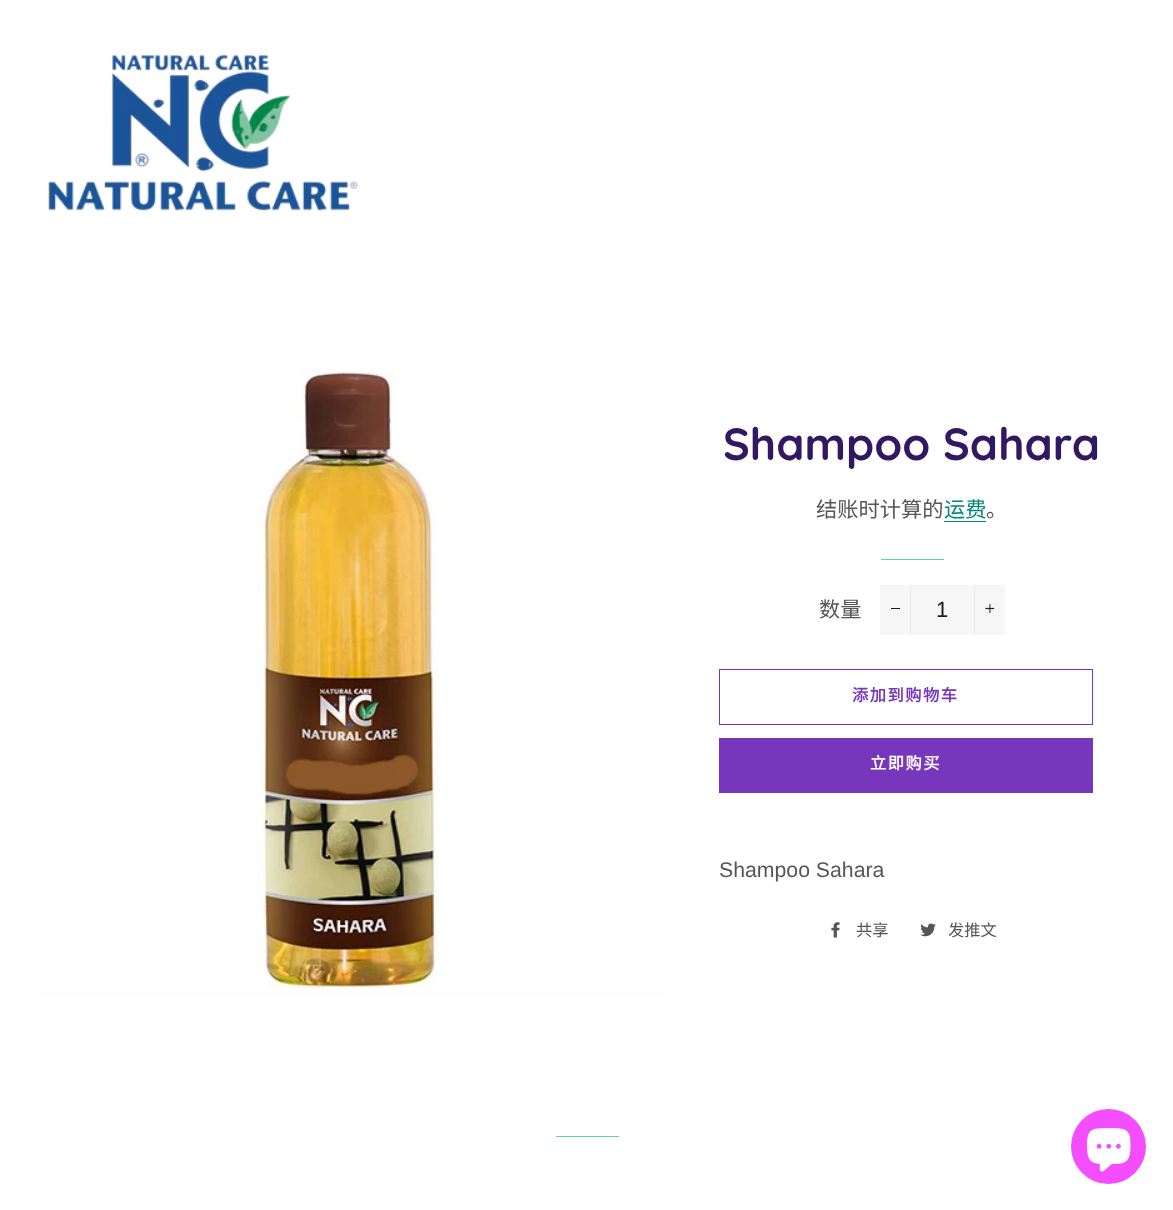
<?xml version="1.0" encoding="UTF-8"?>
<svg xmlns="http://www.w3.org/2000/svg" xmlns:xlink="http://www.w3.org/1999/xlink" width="1173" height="1210">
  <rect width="100%" height="100%" fill="#ffffff" />
  <image x="48" y="54" width="310" height="157" xlink:href="image1.png" />
  <rect x="38" y="368" width="625" height="625" fill="#fff4f6" />
  <image x="38" y="368" width="625" height="625" xlink:href="image2.png" />
  <rect x="944" y="521" width="42" height="1" fill="#058677" />
  <rect x="881" y="559" width="63" height="1" fill="#5dd2b4" />
  <rect x="880" y="585" width="125" height="50" fill="#f6f6f6" />
  <rect x="910" y="585" width="1" height="50" fill="#e9e9e9" />
  <rect x="891" y="608" width="9" height="1" fill="#1c1d1d" />
  <rect x="974" y="585" width="1" height="50" fill="#e9e9e9" />
  <image x="985" y="604" width="10" height="9" xlink:href="image3.png" />
  <rect x="719.5" y="669.5" width="373" height="55" fill="none" stroke="#7737bd" />
  <rect x="719" y="738" width="374" height="55" fill="#7737bd" />
  <image x="831" y="922" width="9" height="16" xlink:href="image4.png" />
  <image x="920" y="923" width="16" height="14" xlink:href="image5.png" />
  <rect x="556" y="1136" width="63" height="1" fill="#5dd2b4" />
  <circle cx="1108.5" cy="1146.5" r="37.5" fill="#f44cff" />
  <image x="1087" y="1128" width="44" height="44" xlink:href="image6.png" />
  <text x="723" y="460" style="font-family: Quicksand; font-size: 45px; font-weight: bold; fill: #321863">Shampoo Sahara</text>
  <text x="816" y="517" style="font-family: Noto Sans CJK SC; font-size: 21.25px; fill: #565656">结账时计算的</text>
  <text x="944" y="517" style="font-family: Noto Sans CJK SC; font-size: 21.25px; fill: #058677">运费</text>
  <text x="986" y="517" style="font-family: Noto Sans CJK SC; font-size: 21.25px; fill: #565656">。</text>
  <text x="819" y="617" style="font-family: Noto Sans CJK SC; font-size: 21.25px; fill: #565656">数量</text>
  <text x="936" y="617" style="font-family: Liberation Sans; font-size: 22px; fill: #1c1d1d">1</text>
  <text x="852" y="701" style="font-family: Noto Sans CJK SC; font-size: 16.25px; font-weight: bold; letter-spacing: 1.5px; fill: #7737bd">添加到购物车</text>
  <text x="870" y="769" style="font-family: Noto Sans CJK SC; font-size: 16.25px; font-weight: bold; letter-spacing: 1.5px; fill: #ffffff">立即购买</text>
  <text x="719" y="877" style="font-family: Liberation Sans; font-size: 21.25px; fill: #565656">Shampoo Sahara</text>
  <text x="856" y="936" style="font-family: Noto Sans CJK SC; font-size: 16.25px; fill: #565656">共享</text>
  <text x="948" y="936" style="font-family: Noto Sans CJK SC; font-size: 16.25px; fill: #565656">发推文</text>
</svg>
